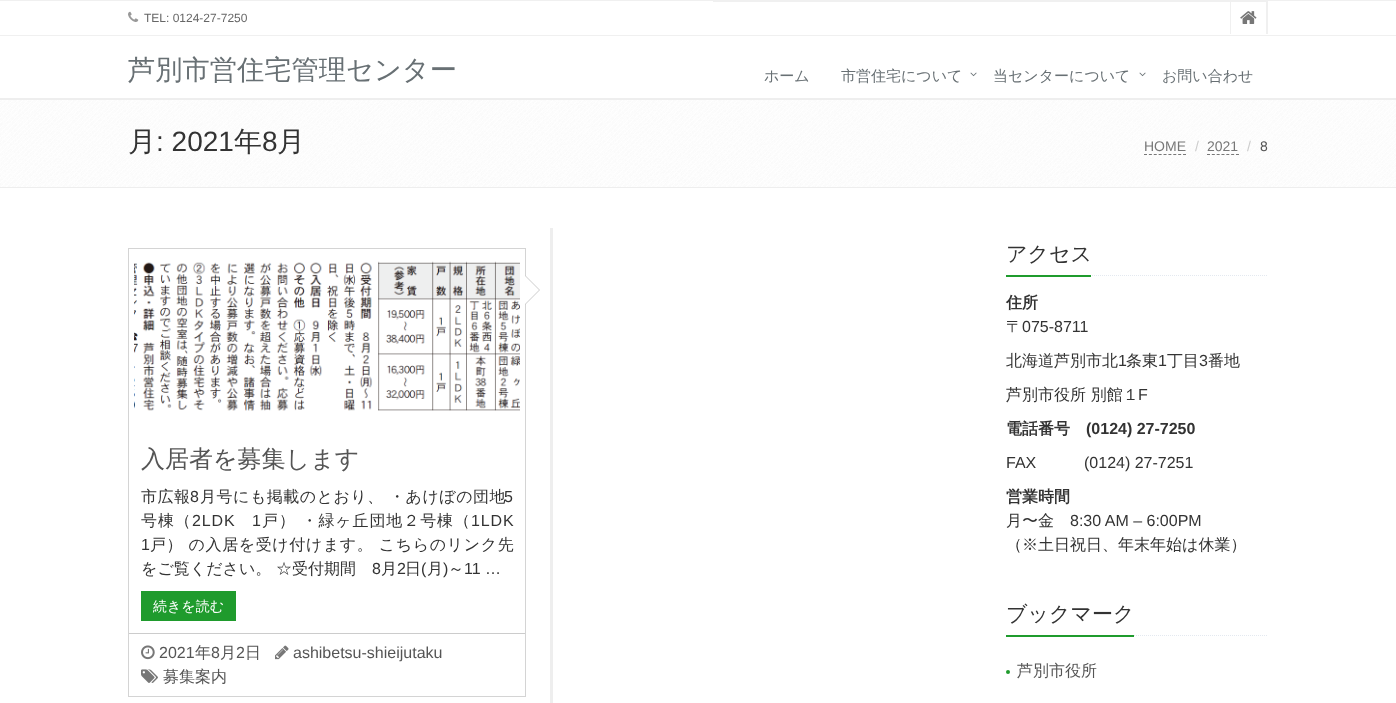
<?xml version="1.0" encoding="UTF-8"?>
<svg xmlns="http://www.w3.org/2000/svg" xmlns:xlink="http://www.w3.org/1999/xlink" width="1396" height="703">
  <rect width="100%" height="100%" fill="#ffffff" />
  <rect y="98" width="1396" height="2" fill="#eeeeee" />
  <rect width="1396" height="1" fill="#f0f0f0" />
  <rect y="35" width="1396" height="1" fill="#f0f0f0" />
  <image x="128" y="11" width="11" height="11" xlink:href="image1.png" />
  <rect x="713" y="1" width="555" height="1" fill="#f0f0f0" />
  <rect x="1267" y="1" width="1" height="33" fill="#f0f0f0" />
  <rect x="1266" y="2" width="1" height="32" fill="#f0f0f0" />
  <rect x="1230" y="2" width="1" height="32" fill="#f0f0f0" />
  <image x="1240" y="11" width="17" height="13" xlink:href="image2.png" />
  <image x="970" y="72" width="7" height="5" xlink:href="image3.png" />
  <image x="1139" y="72" width="7" height="5" xlink:href="image3.png" />
  <image x="0" y="100" width="1396" height="87" xlink:href="image4.png" />
  <rect y="187" width="1396" height="1" fill="#eeeeee" />
  <path d="M 1144 154.5 h 42" fill="none" stroke="#777777" stroke-dasharray="3 1.88" />
  <path d="M 1207 154.5 h 32" fill="none" stroke="#777777" stroke-dasharray="3 1.83" />
  <rect x="128.5" y="248.5" width="397" height="448" fill="none" stroke="#d4d4d4" />
  <image x="134" y="261" width="386" height="150" xlink:href="image5.png" />
  <path d="M 525 305 v -30 l 15 15 z" fill="#cccccc" />
  <path d="M 525 304 v -28 l 14 14 z" fill="#ffffff" />
  <rect x="141" y="591" width="95" height="30" fill="#1f9b2d" />
  <rect x="129" y="633" width="396" height="1" fill="#cccccc" />
  <image x="141" y="645" width="14" height="15" xlink:href="image6.png" />
  <image x="275" y="645" width="14" height="15" xlink:href="image7.png" />
  <image x="141" y="669" width="17" height="14" xlink:href="image8.png" />
  <rect x="550" y="228" width="3" height="475" fill="#eeeeee" />
  <path d="M 1006 275.5 h 262" fill="none" stroke="#e4e9f0" stroke-dasharray="1 1" />
  <rect x="1006" y="275" width="85" height="2" fill="#1f9b2d" />
  <path d="M 1006 635.5 h 262" fill="none" stroke="#e4e9f0" stroke-dasharray="1 1" />
  <rect x="1006" y="635" width="128" height="2" fill="#1f9b2d" />
  <circle cx="1008" cy="672" r="2" fill="#1f9b2d" />
  <text x="144" y="22" style="font-family: Liberation Sans; font-size: 12px; fill: #666666">TEL: 0124-27-7250</text>
  <text x="128" y="79" style="font-family: WenQuanYi Zen Hei; font-size: 27.25px; font-weight: 500; fill: #687074">芦別市営住宅管理センター</text>
  <text x="764" y="81" style="font-family: WenQuanYi Zen Hei; font-size: 15px; font-weight: 500; fill: #687074">ホーム</text>
  <text x="841" y="81" style="font-family: WenQuanYi Zen Hei; font-size: 15px; font-weight: 500; fill: #687074">市営住宅について</text>
  <text x="993" y="81" style="font-family: WenQuanYi Zen Hei; font-size: 15px; font-weight: 500; fill: #687074">当センターについて</text>
  <text x="1162" y="81" style="font-family: WenQuanYi Zen Hei; font-size: 15px; font-weight: 500; fill: #687074">お問い合わせ</text>
  <text x="128" y="151" style="font-family: WenQuanYi Zen Hei; font-size: 28px; font-weight: 500; fill: #333333">月</text>
  <text x="156" y="151" style="font-family: Liberation Sans; font-size: 28px; fill: #333333">: 2021</text>
  <text x="234" y="151" style="font-family: WenQuanYi Zen Hei; font-size: 28px; font-weight: 500; fill: #333333">年</text>
  <text x="262" y="151" style="font-family: Liberation Sans; font-size: 28px; fill: #333333">8</text>
  <text x="277" y="151" style="font-family: WenQuanYi Zen Hei; font-size: 28px; font-weight: 500; fill: #333333">月</text>
  <text x="1144" y="151" style="font-family: Liberation Sans; font-size: 14px; fill: #777777">HOME</text>
  <text x="1195" y="151" style="font-family: Liberation Sans; font-size: 14px; fill: #cccccc">/</text>
  <text x="1207" y="151" style="font-family: Liberation Sans; font-size: 14px; fill: #777777">2021</text>
  <text x="1247" y="151" style="font-family: Liberation Sans; font-size: 14px; fill: #cccccc">/</text>
  <text x="1260" y="151" style="font-family: Liberation Sans; font-size: 14px; fill: #555555">8</text>
  <text x="141" y="467" style="font-family: WenQuanYi Zen Hei; font-size: 24px; font-weight: 500; fill: #555555">入居者を募集します</text>
  <text x="141" y="502" style="font-family: WenQuanYi Zen Hei; font-size: 16px; font-weight: 500; letter-spacing: 0.5px; fill: #333333">市広報</text>
  <text x="190" y="502" style="font-family: Liberation Sans; font-size: 16px; letter-spacing: 0.5px; fill: #333333">8</text>
  <text x="200" y="502" style="font-family: WenQuanYi Zen Hei; font-size: 16px; font-weight: 500; letter-spacing: 0.5px; fill: #333333">月号にも掲載のとおり、 ・あけぼの団地</text>
  <text x="504" y="502" style="font-family: Liberation Sans; font-size: 16px; letter-spacing: 0.5px; fill: #333333">5</text>
  <text x="141" y="526" style="font-family: WenQuanYi Zen Hei; font-size: 16px; font-weight: 500; letter-spacing: 0.9px; fill: #333333">号棟（</text>
  <text x="192" y="526" style="font-family: Liberation Sans; font-size: 16px; letter-spacing: 0.9px; fill: #333333">2LDK</text>
  <text x="252" y="526" style="font-family: Liberation Sans; font-size: 16px; letter-spacing: 0.9px; fill: #333333">1</text>
  <text x="262" y="526" style="font-family: WenQuanYi Zen Hei; font-size: 16px; font-weight: 500; letter-spacing: 0.9px; fill: #333333">戸） ・緑ヶ丘団地２号棟（</text>
  <text x="471" y="526" style="font-family: Liberation Sans; font-size: 16px; letter-spacing: 0.9px; fill: #333333">1LDK</text>
  <text x="141" y="550" style="font-family: Liberation Sans; font-size: 16px; letter-spacing: 0.6px; fill: #333333">1</text>
  <text x="150" y="550" style="font-family: WenQuanYi Zen Hei; font-size: 16px; font-weight: 500; letter-spacing: 0.6px; fill: #333333">戸） の入居を受け付けます。 こちらのリンク先</text>
  <text x="141" y="574" style="font-family: WenQuanYi Zen Hei; font-size: 16px; font-weight: 500; fill: #333333">をご覧ください。</text>
  <text x="276" y="574" style="font-family: WenQuanYi Zen Hei; font-size: 16px; font-weight: 500; fill: #333333">☆受付期間</text>
  <text x="372" y="574" style="font-family: Liberation Sans; font-size: 16px; fill: #333333">8</text>
  <text x="381" y="574" style="font-family: WenQuanYi Zen Hei; font-size: 16px; font-weight: 500; fill: #333333">月</text>
  <text x="397" y="574" style="font-family: Liberation Sans; font-size: 16px; fill: #333333">2</text>
  <text x="405" y="574" style="font-family: WenQuanYi Zen Hei; font-size: 16px; font-weight: 500; fill: #333333">日</text>
  <text x="421" y="574" style="font-family: Liberation Sans; font-size: 16px; fill: #333333">(</text>
  <text x="427" y="574" style="font-family: WenQuanYi Zen Hei; font-size: 16px; font-weight: 500; fill: #333333">月</text>
  <text x="443" y="574" style="font-family: Liberation Sans; font-size: 16px; fill: #333333">)</text>
  <text x="448" y="574" style="font-family: WenQuanYi Zen Hei; font-size: 16px; font-weight: 500; fill: #333333">～</text>
  <text x="464" y="574" style="font-family: Liberation Sans; font-size: 16px; fill: #333333">11 …</text>
  <text x="153" y="611" style="font-family: WenQuanYi Zen Hei; font-size: 14px; font-weight: 500; fill: #ffffff">続きを読む</text>
  <text x="159" y="658" style="font-family: Liberation Sans; font-size: 16px; fill: #555555">2021</text>
  <text x="195" y="658" style="font-family: WenQuanYi Zen Hei; font-size: 16px; font-weight: 500; fill: #555555">年</text>
  <text x="211" y="658" style="font-family: Liberation Sans; font-size: 16px; fill: #555555">8</text>
  <text x="220" y="658" style="font-family: WenQuanYi Zen Hei; font-size: 16px; font-weight: 500; fill: #555555">月</text>
  <text x="236" y="658" style="font-family: Liberation Sans; font-size: 16px; fill: #555555">2</text>
  <text x="245" y="658" style="font-family: WenQuanYi Zen Hei; font-size: 16px; font-weight: 500; fill: #555555">日</text>
  <text x="293" y="658" style="font-family: Liberation Sans; font-size: 16px; fill: #555555">ashibetsu-shieijutaku</text>
  <text x="163" y="682" style="font-family: WenQuanYi Zen Hei; font-size: 16px; font-weight: 500; fill: #555555">募集案内</text>
  <text x="1006" y="261" style="font-family: WenQuanYi Zen Hei; font-size: 21px; font-weight: 500; fill: #333333">アクセス</text>
  <text x="1006" y="308" style="font-family: WenQuanYi Zen Hei; font-size: 16px; font-weight: bold; fill: #333333">住所</text>
  <text x="1006" y="332" style="font-family: WenQuanYi Zen Hei; font-size: 16px; font-weight: 500; fill: #333333">〒</text>
  <text x="1022" y="332" style="font-family: Liberation Sans; font-size: 16px; fill: #333333">075-8711</text>
  <text x="1006" y="366" style="font-family: WenQuanYi Zen Hei; font-size: 16px; font-weight: 500; fill: #333333">北海道芦別市北</text>
  <text x="1118" y="366" style="font-family: Liberation Sans; font-size: 16px; fill: #333333">1</text>
  <text x="1126" y="366" style="font-family: WenQuanYi Zen Hei; font-size: 16px; font-weight: 500; fill: #333333">条東</text>
  <text x="1158" y="366" style="font-family: Liberation Sans; font-size: 16px; fill: #333333">1</text>
  <text x="1167" y="366" style="font-family: WenQuanYi Zen Hei; font-size: 16px; font-weight: 500; fill: #333333">丁目</text>
  <text x="1199" y="366" style="font-family: Liberation Sans; font-size: 16px; fill: #333333">3</text>
  <text x="1208" y="366" style="font-family: WenQuanYi Zen Hei; font-size: 16px; font-weight: 500; fill: #333333">番地</text>
  <text x="1006" y="400" style="font-family: WenQuanYi Zen Hei; font-size: 16px; font-weight: 500; fill: #333333">芦別市役所 別館１</text>
  <text x="1138" y="400" style="font-family: Liberation Sans; font-size: 16px; fill: #333333">F</text>
  <text x="1006" y="434" style="font-family: WenQuanYi Zen Hei; font-size: 16px; font-weight: bold; fill: #333333">電話番号</text>
  <text x="1086" y="434" style="font-family: Liberation Sans; font-size: 16px; font-weight: bold; fill: #333333">(0124) 27-7250</text>
  <text x="1006" y="468" style="font-family: Liberation Sans; font-size: 16px; fill: #333333">FAX</text>
  <text x="1084" y="468" style="font-family: Liberation Sans; font-size: 16px; fill: #333333">(0124) 27-7251</text>
  <text x="1006" y="502" style="font-family: WenQuanYi Zen Hei; font-size: 16px; font-weight: bold; fill: #333333">営業時間</text>
  <text x="1006" y="526" style="font-family: WenQuanYi Zen Hei; font-size: 16px; font-weight: 500; fill: #333333">月〜金</text>
  <text x="1070" y="526" style="font-family: Liberation Sans; font-size: 16px; fill: #333333">8:30 AM – 6:00PM</text>
  <text x="1006" y="550" style="font-family: WenQuanYi Zen Hei; font-size: 16px; font-weight: 500; fill: #333333">（※土日祝日、年末年始は休業）</text>
  <text x="1006" y="621" style="font-family: WenQuanYi Zen Hei; font-size: 21px; font-weight: 500; fill: #333333">ブックマーク</text>
  <text x="1017" y="676" style="font-family: WenQuanYi Zen Hei; font-size: 16px; font-weight: 500; fill: #555555">芦別市役所</text>
</svg>
